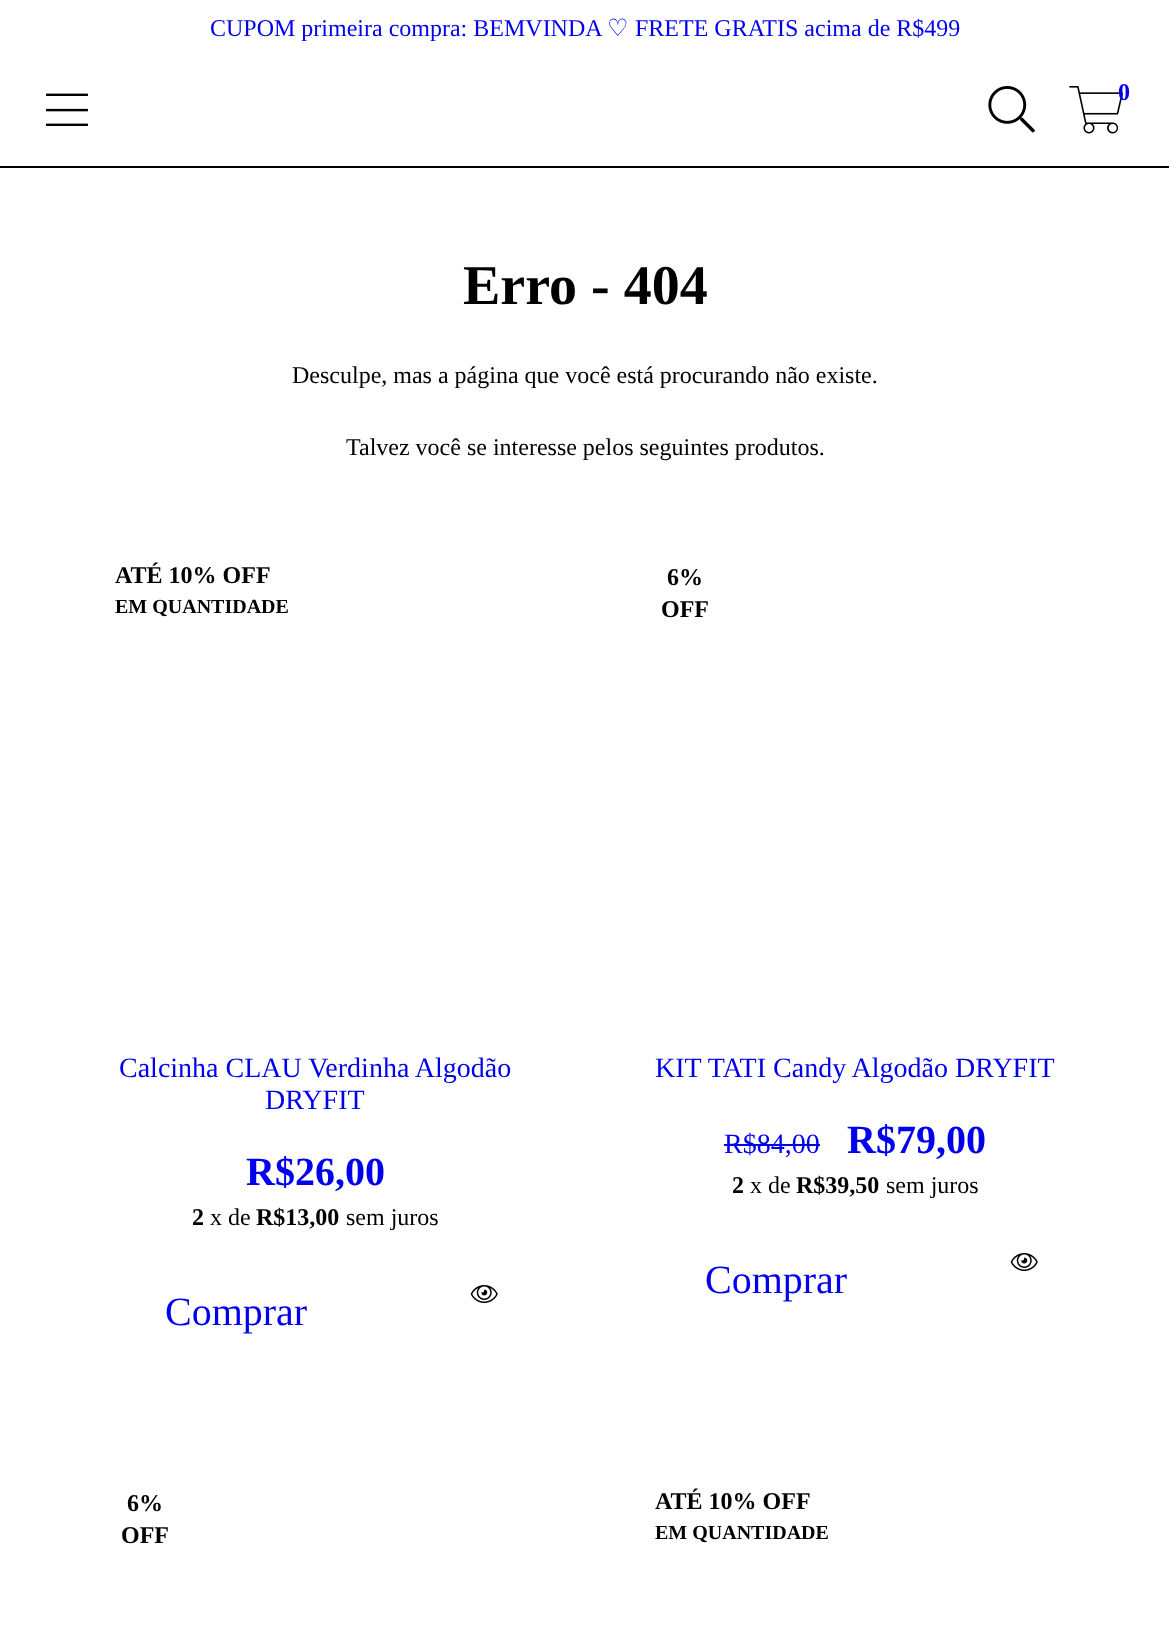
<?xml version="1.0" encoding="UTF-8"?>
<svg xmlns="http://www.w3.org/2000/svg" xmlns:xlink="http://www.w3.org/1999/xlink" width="1169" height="1629">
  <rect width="100%" height="100%" fill="#ffffff" />
  <image x="46" y="93" width="42" height="33" xlink:href="image1.png" />
  <image x="988" y="86" width="47" height="47" xlink:href="image2.png" />
  <image x="1069" y="86" width="54" height="48" xlink:href="image3.png" />
  <rect y="166" width="1169" height="2" fill="#000000" />
  <image x="470" y="1285" width="28" height="18" xlink:href="image4.png" />
  <rect x="724" y="1144" width="96" height="2" fill="#0000ee" />
  <image x="1010" y="1253" width="28" height="18" xlink:href="image4.png" />
  <text x="210" y="36" style="font-family: Liberation Serif; font-size: 24px; fill: #0000ee">CUPOM primeira compra: BEMVINDA</text>
  <text x="607" y="36" style="font-family: DejaVu Sans; font-size: 24px; fill: #0000ee">♡</text>
  <text x="635" y="36" style="font-family: Liberation Serif; font-size: 24px; fill: #0000ee">FRETE GRATIS acima de R$499</text>
  <text x="1118" y="100" style="font-family: Liberation Serif; font-size: 24px; font-weight: bold; fill: #0000ee">0</text>
  <text x="463" y="304" style="font-family: Liberation Serif; font-size: 56px; font-weight: bold; fill: #000000">Erro - 404</text>
  <text x="292" y="383" style="font-family: Liberation Serif; font-size: 24px; fill: #000000">Desculpe, mas a página que você está procurando não existe.</text>
  <text x="346" y="455" style="font-family: Liberation Serif; font-size: 24px; fill: #000000">Talvez você se interesse pelos seguintes produtos.</text>
  <text x="115" y="583" style="font-family: Liberation Serif; font-size: 24px; font-weight: bold; fill: #000000">ATÉ 10% OFF</text>
  <text x="115" y="613" style="font-family: Liberation Serif; font-size: 20px; font-weight: bold; fill: #000000">EM QUANTIDADE</text>
  <text x="119" y="1077" style="font-family: Liberation Serif; font-size: 28px; fill: #0000ee">Calcinha CLAU Verdinha Algodão</text>
  <text x="265" y="1109" style="font-family: Liberation Serif; font-size: 28px; fill: #0000ee">DRYFIT</text>
  <text x="246" y="1185" style="font-family: Liberation Serif; font-size: 40px; font-weight: bold; fill: #0000ee">R$26,00</text>
  <text x="192" y="1225" style="font-family: Liberation Serif; font-size: 24px; font-weight: bold; fill: #000000">2</text>
  <text x="210" y="1225" style="font-family: Liberation Serif; font-size: 24px; fill: #000000">x de</text>
  <text x="256" y="1225" style="font-family: Liberation Serif; font-size: 24px; font-weight: bold; fill: #000000">R$13,00</text>
  <text x="346" y="1225" style="font-family: Liberation Serif; font-size: 24px; fill: #000000">sem juros</text>
  <text x="165" y="1325" style="font-family: Liberation Serif; font-size: 40px; fill: #0000ee">Comprar</text>
  <text x="667" y="585" style="font-family: Liberation Serif; font-size: 24px; font-weight: bold; fill: #000000">6%</text>
  <text x="661" y="617" style="font-family: Liberation Serif; font-size: 24px; font-weight: bold; fill: #000000">OFF</text>
  <text x="655" y="1077" style="font-family: Liberation Serif; font-size: 28px; fill: #0000ee">KIT TATI Candy Algodão DRYFIT</text>
  <text x="724" y="1153" style="font-family: Liberation Serif; font-size: 28px; fill: #0000ee">R$84,00</text>
  <text x="847" y="1153" style="font-family: Liberation Serif; font-size: 40px; font-weight: bold; fill: #0000ee">R$79,00</text>
  <text x="732" y="1193" style="font-family: Liberation Serif; font-size: 24px; font-weight: bold; fill: #000000">2</text>
  <text x="750" y="1193" style="font-family: Liberation Serif; font-size: 24px; fill: #000000">x de</text>
  <text x="796" y="1193" style="font-family: Liberation Serif; font-size: 24px; font-weight: bold; fill: #000000">R$39,50</text>
  <text x="886" y="1193" style="font-family: Liberation Serif; font-size: 24px; fill: #000000">sem juros</text>
  <text x="705" y="1293" style="font-family: Liberation Serif; font-size: 40px; fill: #0000ee">Comprar</text>
  <text x="127" y="1511" style="font-family: Liberation Serif; font-size: 24px; font-weight: bold; fill: #000000">6%</text>
  <text x="121" y="1543" style="font-family: Liberation Serif; font-size: 24px; font-weight: bold; fill: #000000">OFF</text>
  <text x="655" y="1509" style="font-family: Liberation Serif; font-size: 24px; font-weight: bold; fill: #000000">ATÉ 10% OFF</text>
  <text x="655" y="1539" style="font-family: Liberation Serif; font-size: 20px; font-weight: bold; fill: #000000">EM QUANTIDADE</text>
</svg>
